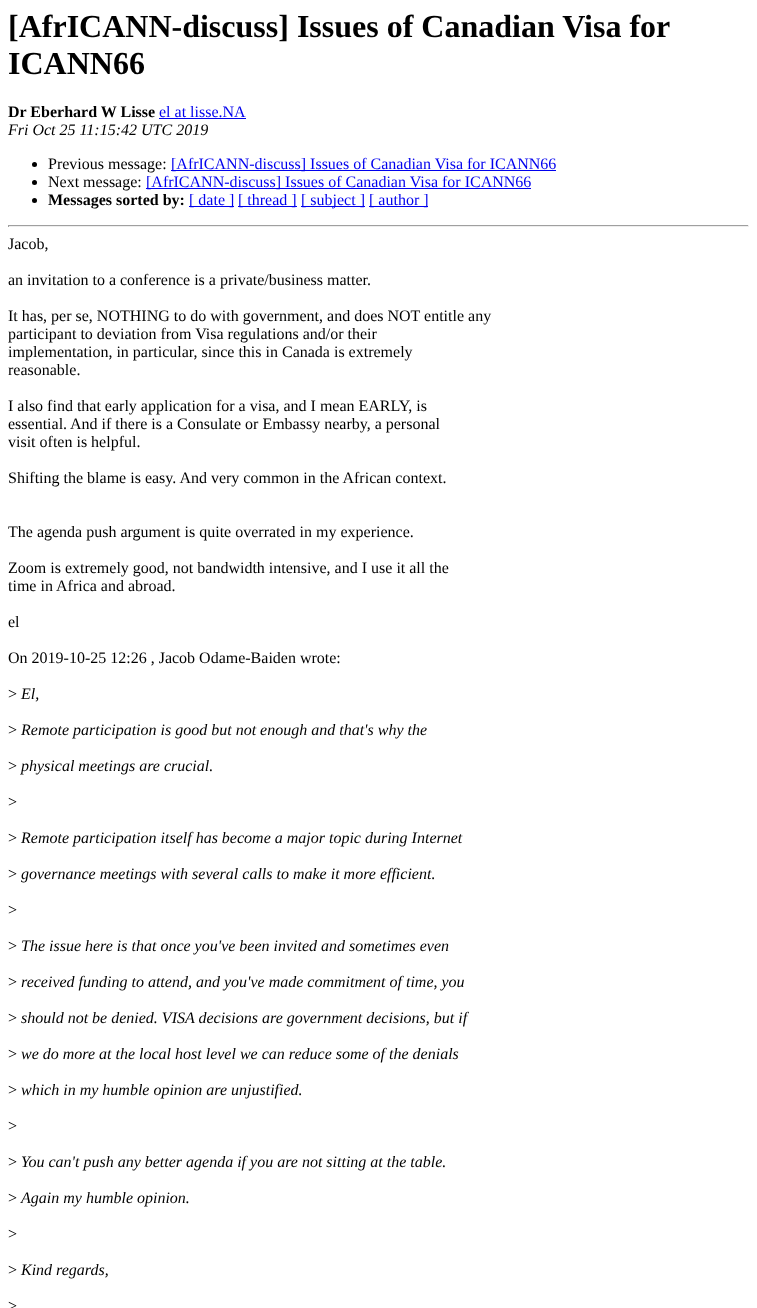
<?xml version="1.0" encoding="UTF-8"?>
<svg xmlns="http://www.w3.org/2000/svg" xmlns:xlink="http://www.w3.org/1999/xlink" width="757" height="1308">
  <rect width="100%" height="100%" fill="#ffffff" />
  <rect x="159" y="118" width="87" height="1" fill="#0000ee" />
  <circle cx="34.5" cy="164.5" r="2.5" fill="#000000" />
  <rect x="171" y="170" width="385" height="1" fill="#0000ee" />
  <circle cx="34.5" cy="182.5" r="2.5" fill="#000000" />
  <rect x="146" y="188" width="385" height="1" fill="#0000ee" />
  <circle cx="34.5" cy="200.5" r="2.5" fill="#000000" />
  <rect x="189" y="206" width="45" height="1" fill="#0000ee" />
  <rect x="238" y="206" width="59" height="1" fill="#0000ee" />
  <rect x="301" y="206" width="64" height="1" fill="#0000ee" />
  <rect x="369" y="206" width="59" height="1" fill="#0000ee" />
  <rect x="8" y="225" width="741" height="1" fill="#9f9f9f" />
  <rect x="748" y="225" width="1" height="2" fill="#eeeeee" />
  <rect x="8" y="226" width="741" height="1" fill="#eeeeee" />
  <rect x="8" y="225" width="1" height="2" fill="#9f9f9f" />
  <text x="8" y="37" style="font-family: Liberation Serif; font-size: 32px; font-weight: bold; fill: #000000">[AfrICANN-discuss] Issues of Canadian Visa for</text>
  <text x="8" y="74" style="font-family: Liberation Serif; font-size: 32px; font-weight: bold; fill: #000000">ICANN66</text>
  <text x="8" y="117" style="font-family: Liberation Serif; font-size: 16px; font-weight: bold; fill: #000000">Dr Eberhard W Lisse</text>
  <text x="159" y="117" style="font-family: Liberation Serif; font-size: 16px; fill: #0000ee">el at lisse.NA</text>
  <text x="8" y="135" style="font-family: Liberation Serif; font-size: 16px; font-style: italic; fill: #000000">Fri Oct 25 11:15:42 UTC 2019</text>
  <text x="48" y="169" style="font-family: Liberation Serif; font-size: 16px; fill: #000000">Previous message:</text>
  <text x="171" y="169" style="font-family: Liberation Serif; font-size: 16px; fill: #0000ee">[AfrICANN-discuss] Issues of Canadian Visa for ICANN66</text>
  <text x="48" y="187" style="font-family: Liberation Serif; font-size: 16px; fill: #000000">Next message:</text>
  <text x="146" y="187" style="font-family: Liberation Serif; font-size: 16px; fill: #0000ee">[AfrICANN-discuss] Issues of Canadian Visa for ICANN66</text>
  <text x="48" y="205" style="font-family: Liberation Serif; font-size: 16px; font-weight: bold; fill: #000000">Messages sorted by:</text>
  <text x="189" y="205" style="font-family: Liberation Serif; font-size: 16px; fill: #0000ee">[ date ]</text>
  <text x="238" y="205" style="font-family: Liberation Serif; font-size: 16px; fill: #0000ee">[ thread ]</text>
  <text x="301" y="205" style="font-family: Liberation Serif; font-size: 16px; fill: #0000ee">[ subject ]</text>
  <text x="369" y="205" style="font-family: Liberation Serif; font-size: 16px; fill: #0000ee">[ author ]</text>
  <text x="8" y="249" style="font-family: Liberation Serif; font-size: 16px; fill: #000000">Jacob,</text>
  <text x="8" y="285" style="font-family: Liberation Serif; font-size: 16px; fill: #000000">an invitation to a conference is a private/business matter.</text>
  <text x="8" y="321" style="font-family: Liberation Serif; font-size: 16px; fill: #000000">It has, per se, NOTHING to do with government, and does NOT entitle any</text>
  <text x="8" y="339" style="font-family: Liberation Serif; font-size: 16px; fill: #000000">participant to deviation from Visa regulations and/or their</text>
  <text x="8" y="357" style="font-family: Liberation Serif; font-size: 16px; fill: #000000">implementation, in particular, since this in Canada is extremely</text>
  <text x="8" y="375" style="font-family: Liberation Serif; font-size: 16px; fill: #000000">reasonable.</text>
  <text x="8" y="411" style="font-family: Liberation Serif; font-size: 16px; fill: #000000">I also find that early application for a visa, and I mean EARLY, is</text>
  <text x="8" y="429" style="font-family: Liberation Serif; font-size: 16px; fill: #000000">essential.</text>
  <text x="70" y="429" style="font-family: Liberation Serif; font-size: 16px; fill: #000000">And if there is a Consulate or Embassy nearby, a personal</text>
  <text x="8" y="447" style="font-family: Liberation Serif; font-size: 16px; fill: #000000">visit often is helpful.</text>
  <text x="8" y="483" style="font-family: Liberation Serif; font-size: 16px; fill: #000000">Shifting the blame is easy. And very common in the African context.</text>
  <text x="8" y="537" style="font-family: Liberation Serif; font-size: 16px; fill: #000000">The agenda push argument is quite overrated in my experience.</text>
  <text x="8" y="573" style="font-family: Liberation Serif; font-size: 16px; fill: #000000">Zoom is extremely good, not bandwidth intensive, and I use it all the</text>
  <text x="8" y="591" style="font-family: Liberation Serif; font-size: 16px; fill: #000000">time in Africa and abroad.</text>
  <text x="8" y="627" style="font-family: Liberation Serif; font-size: 16px; fill: #000000">el</text>
  <text x="8" y="663" style="font-family: Liberation Serif; font-size: 16px; fill: #000000">On 2019-10-25 12:26 , Jacob Odame-Baiden wrote:</text>
  <text x="8" y="699" style="font-family: Liberation Serif; font-size: 16px; fill: #000000">&gt;</text>
  <text x="21" y="699" style="font-family: Liberation Serif; font-size: 16px; font-style: italic; fill: #000000">El,</text>
  <text x="8" y="735" style="font-family: Liberation Serif; font-size: 16px; fill: #000000">&gt;</text>
  <text x="21" y="735" style="font-family: Liberation Serif; font-size: 16px; font-style: italic; fill: #000000">Remote participation is good but not enough and that's why the</text>
  <text x="8" y="771" style="font-family: Liberation Serif; font-size: 16px; fill: #000000">&gt;</text>
  <text x="21" y="771" style="font-family: Liberation Serif; font-size: 16px; font-style: italic; fill: #000000">physical meetings are crucial.</text>
  <text x="8" y="807" style="font-family: Liberation Serif; font-size: 16px; fill: #000000">&gt;</text>
  <text x="8" y="843" style="font-family: Liberation Serif; font-size: 16px; fill: #000000">&gt;</text>
  <text x="21" y="843" style="font-family: Liberation Serif; font-size: 16px; font-style: italic; fill: #000000">Remote participation itself has become a major topic during Internet</text>
  <text x="8" y="879" style="font-family: Liberation Serif; font-size: 16px; fill: #000000">&gt;</text>
  <text x="21" y="879" style="font-family: Liberation Serif; font-size: 16px; font-style: italic; fill: #000000">governance meetings with several calls to make it more efficient.</text>
  <text x="8" y="915" style="font-family: Liberation Serif; font-size: 16px; fill: #000000">&gt;</text>
  <text x="8" y="951" style="font-family: Liberation Serif; font-size: 16px; fill: #000000">&gt;</text>
  <text x="21" y="951" style="font-family: Liberation Serif; font-size: 16px; font-style: italic; fill: #000000">The issue here is that once you've been invited and sometimes even</text>
  <text x="8" y="987" style="font-family: Liberation Serif; font-size: 16px; fill: #000000">&gt;</text>
  <text x="21" y="987" style="font-family: Liberation Serif; font-size: 16px; font-style: italic; fill: #000000">received funding to attend, and you've made commitment of time, you</text>
  <text x="8" y="1023" style="font-family: Liberation Serif; font-size: 16px; fill: #000000">&gt;</text>
  <text x="21" y="1023" style="font-family: Liberation Serif; font-size: 16px; font-style: italic; fill: #000000">should not be denied. VISA decisions are government decisions, but if</text>
  <text x="8" y="1059" style="font-family: Liberation Serif; font-size: 16px; fill: #000000">&gt;</text>
  <text x="21" y="1059" style="font-family: Liberation Serif; font-size: 16px; font-style: italic; fill: #000000">we do more at the local host level we can reduce some of the denials</text>
  <text x="8" y="1095" style="font-family: Liberation Serif; font-size: 16px; fill: #000000">&gt;</text>
  <text x="21" y="1095" style="font-family: Liberation Serif; font-size: 16px; font-style: italic; fill: #000000">which in my humble opinion are unjustified.</text>
  <text x="8" y="1131" style="font-family: Liberation Serif; font-size: 16px; fill: #000000">&gt;</text>
  <text x="8" y="1167" style="font-family: Liberation Serif; font-size: 16px; fill: #000000">&gt;</text>
  <text x="21" y="1167" style="font-family: Liberation Serif; font-size: 16px; font-style: italic; fill: #000000">You can't push any better agenda if you are not sitting at the table.</text>
  <text x="8" y="1203" style="font-family: Liberation Serif; font-size: 16px; fill: #000000">&gt;</text>
  <text x="21" y="1203" style="font-family: Liberation Serif; font-size: 16px; font-style: italic; fill: #000000">Again my humble opinion.</text>
  <text x="8" y="1239" style="font-family: Liberation Serif; font-size: 16px; fill: #000000">&gt;</text>
  <text x="8" y="1275" style="font-family: Liberation Serif; font-size: 16px; fill: #000000">&gt;</text>
  <text x="21" y="1275" style="font-family: Liberation Serif; font-size: 16px; font-style: italic; fill: #000000">Kind regards,</text>
  <text x="8" y="1311" style="font-family: Liberation Serif; font-size: 16px; fill: #000000">&gt;</text>
</svg>
